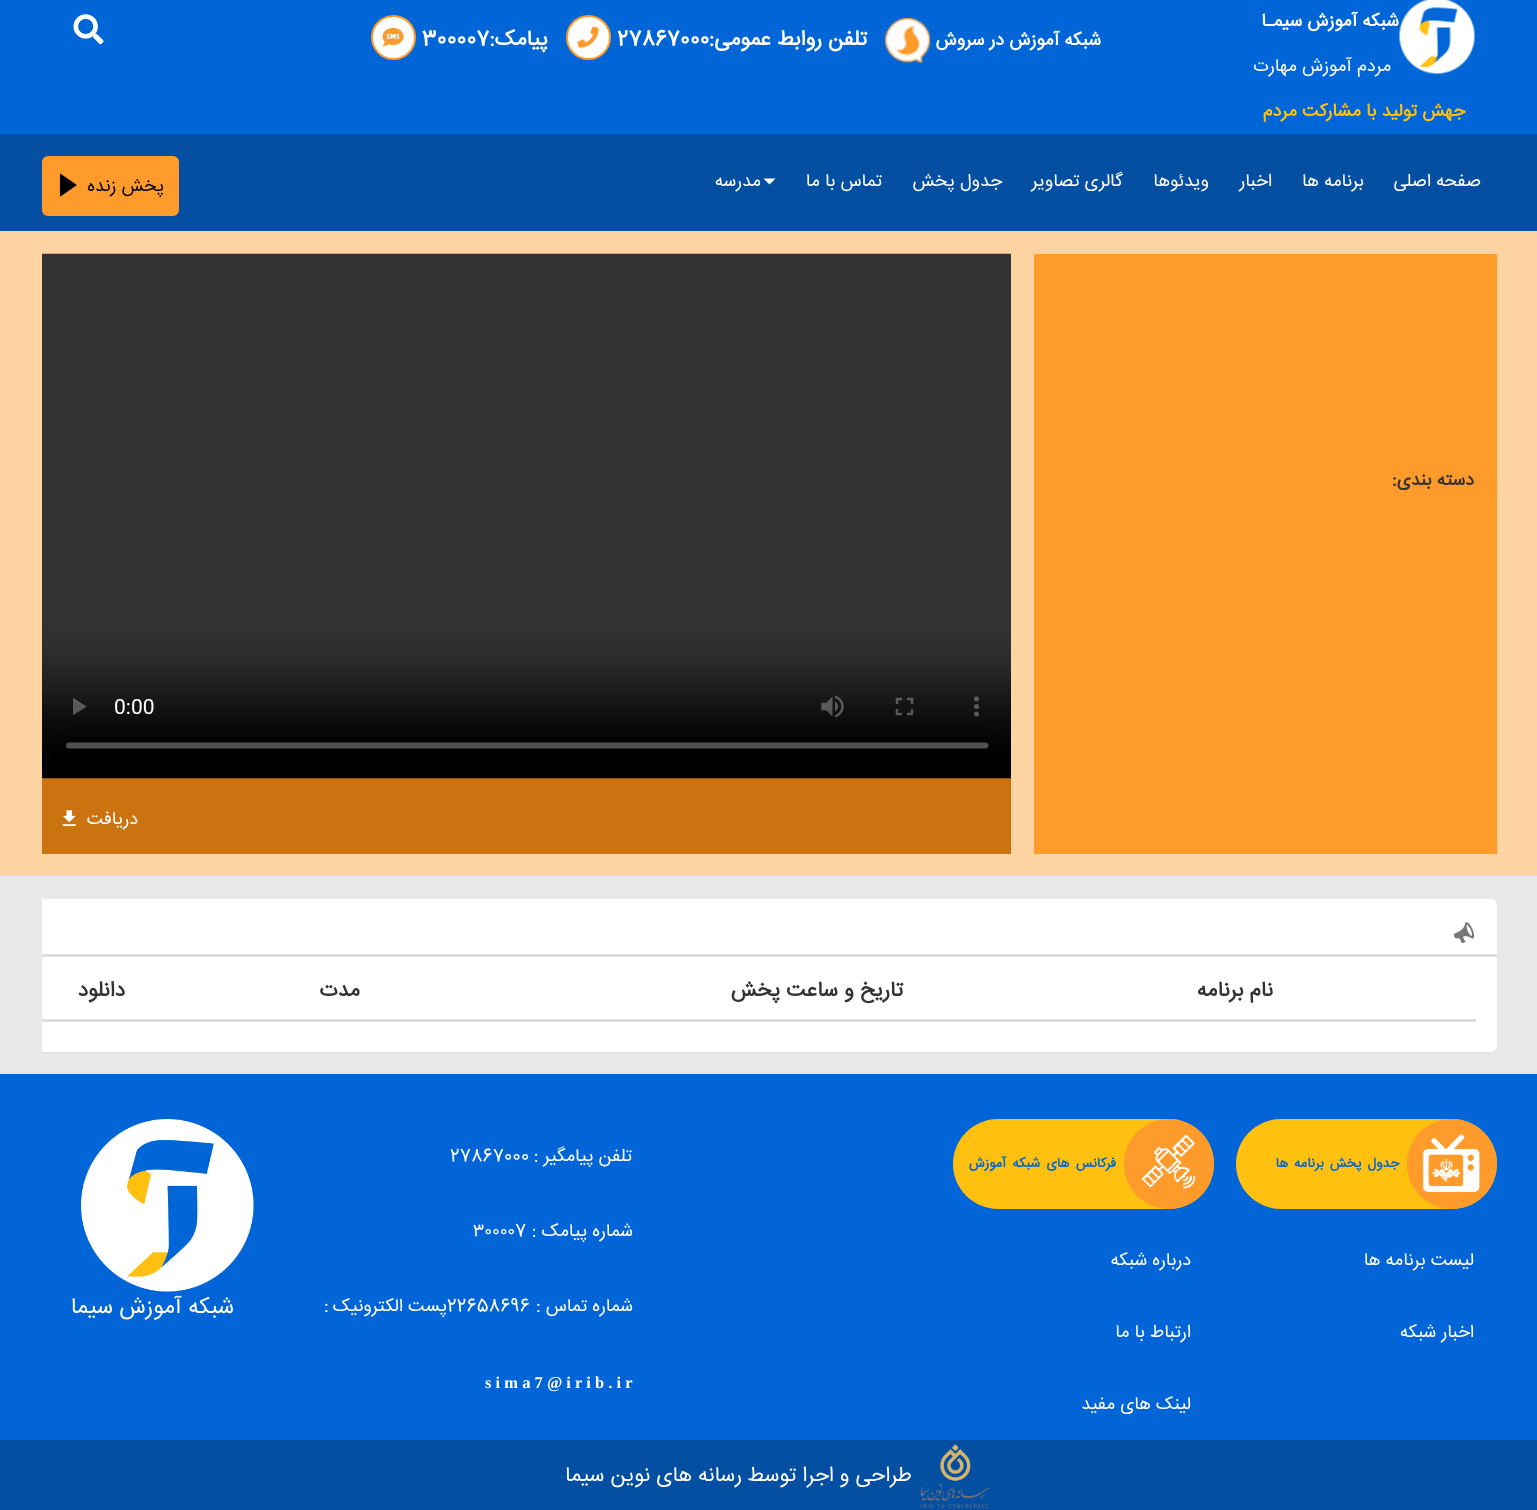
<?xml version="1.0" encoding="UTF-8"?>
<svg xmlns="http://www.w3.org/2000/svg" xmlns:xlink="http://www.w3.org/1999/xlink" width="1537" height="1510">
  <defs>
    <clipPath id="clip1"><rect x="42" y="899" width="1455" height="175" /></clipPath>
  </defs>
  <rect width="100%" height="100%" fill="#e9e9e9" />
  <rect width="1537" height="134" fill="#0065d7" />
  <image x="1399" y="0" width="76" height="74" xlink:href="image1.png" />
  <image x="885" y="18" width="45" height="45" xlink:href="image2.png" />
  <circle cx="588.5" cy="37.5" r="21.5" fill="#ffffff" stroke="#fe9b2a" stroke-width="2" />
  <image x="577" y="26" width="22" height="22" xlink:href="image3.png" />
  <circle cx="393.5" cy="37.5" r="21.5" fill="#ffffff" stroke="#fe9b2a" stroke-width="2" />
  <image x="382" y="27" width="22" height="20" xlink:href="image4.png" />
  <image x="73" y="14" width="31" height="31" xlink:href="image5.png" />
  <rect y="134" width="1537" height="97" fill="#044fa2" />
  <path d="M 763.5 178.5 h 12 l -6 6 z" fill="#ffffff" />
  <rect x="42" y="156" width="137" height="60" rx="6" fill="#fe9b2a" />
  <image x="59" y="173" width="18" height="24" xlink:href="image6.png" />
  <rect y="231" width="1537" height="645" fill="#ffd4a3" />
  <rect x="1034" y="254" width="463" height="600" fill="#fe9b2a" />
  <rect x="42" y="778" width="969" height="76" fill="#cb7310" />
  <image x="42" y="253" width="969" height="526" xlink:href="image7.png" />
  <image x="62" y="810" width="14" height="17" xlink:href="image8.png" />
  <g clip-path="url(#clip1)">
    <rect x="20" y="900" width="1477" height="153" rx="6" fill="#000000" fill-opacity="0.05" filter="blur(1px)" />
  </g>
  <path d="M 42 899 h 1449 c 3.5 0 6 2.5 6 6 v 141 c 0 3.5 -2.5 6 -6 6 h -1449 z" fill="#ffffff" />
  <rect x="42" y="954" width="1455" height="3" fill="#dddddd" />
  <image x="1454" y="922" width="20" height="22" xlink:href="image9.png" />
  <rect x="42" y="1019" width="1434" height="3" fill="#dddddd" />
  <rect y="1074" width="1537" height="366" fill="#0165d7" />
  <rect x="1236" y="1119" width="261" height="90" rx="45" fill="#ffc010" />
  <circle cx="1452" cy="1164" r="45" fill="#fe9b2a" />
  <image x="1422" y="1134" width="58" height="58" xlink:href="image10.png" />
  <rect x="953" y="1119" width="261" height="90" rx="45" fill="#ffc010" />
  <circle cx="1169" cy="1164" r="45" fill="#fe9b2a" />
  <image x="1141" y="1134" width="55" height="55" xlink:href="image11.png" />
  <image x="81" y="1119" width="173" height="173" xlink:href="image12.png" />
  <rect y="1440" width="1537" height="70" fill="#044fa2" />
  <image x="920" y="1444" width="69" height="65" xlink:href="image13.png" />
  <text x="1399" y="26" style="font-family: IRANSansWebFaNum; font-size: 18px; font-weight: bold; direction: rtl; fill: #ffffff">شبکه آموزش سیمـا</text>
  <text x="1391" y="71" style="font-family: IRANSansWebFaNum; font-size: 18px; direction: rtl; fill: #ffffff">مردم آموزش مهارت</text>
  <text x="1465" y="116" style="font-family: IRANSansWebFaNum; font-size: 18px; font-weight: bold; direction: rtl; fill: #ffc010">جهش تولید با مشارکت مردم</text>
  <text x="1101" y="45" style="font-family: IRANSansWebFaNum; font-size: 18px; font-weight: bold; direction: rtl; fill: #ffffff">شبکه آموزش در سروش</text>
  <text x="867" y="45" style="font-family: IRANSansWebFaNum; font-size: 21px; font-weight: bold; direction: rtl; fill: #ffffff">تلفن روابط عمومی:</text>
  <text x="617" y="45" style="font-family: IRANSansWebFaNum; font-size: 21px; font-weight: bold; fill: #ffffff">27867000</text>
  <text x="548" y="45" style="font-family: IRANSansWebFaNum; font-size: 21px; font-weight: bold; direction: rtl; fill: #ffffff">پیامک:</text>
  <text x="422" y="45" style="font-family: IRANSansWebFaNum; font-size: 21px; font-weight: bold; fill: #ffffff">300007</text>
  <text x="1481" y="186" style="font-family: IRANSansWebFaNum; font-size: 18px; direction: rtl; fill: #ffffff">صفحه اصلی</text>
  <text x="1364" y="186" style="font-family: IRANSansWebFaNum; font-size: 18px; direction: rtl; fill: #ffffff">برنامه ها</text>
  <text x="1272" y="186" style="font-family: IRANSansWebFaNum; font-size: 18px; direction: rtl; fill: #ffffff">اخبار</text>
  <text x="1209" y="186" style="font-family: IRANSansWebFaNum; font-size: 18px; direction: rtl; fill: #ffffff">ویدئوها</text>
  <text x="1123" y="186" style="font-family: IRANSansWebFaNum; font-size: 18px; direction: rtl; fill: #ffffff">گالری تصاویر</text>
  <text x="1002" y="186" style="font-family: IRANSansWebFaNum; font-size: 18px; direction: rtl; fill: #ffffff">جدول پخش</text>
  <text x="882" y="186" style="font-family: IRANSansWebFaNum; font-size: 18px; direction: rtl; fill: #ffffff">تماس با ما</text>
  <text x="761" y="186" style="font-family: IRANSansWebFaNum; font-size: 18px; direction: rtl; fill: #ffffff">مدرسه</text>
  <text x="164" y="191" style="font-family: IRANSansWebFaNum; font-size: 18px; direction: rtl; fill: #000000">پخش زنده</text>
  <text x="1474" y="485" style="font-family: IRANSansWebFaNum; font-size: 18px; font-weight: bold; direction: rtl; fill: #333333">دسته بندی:</text>
  <text x="138" y="824" style="font-family: IRANSansWebFaNum; font-size: 18px; direction: rtl; fill: #ffffff">دریافت</text>
  <text x="1273" y="996" style="font-family: IRANSansWebFaNum; font-size: 21px; font-weight: bold; direction: rtl; fill: #333333">نام برنامه</text>
  <text x="903" y="996" style="font-family: IRANSansWebFaNum; font-size: 21px; font-weight: bold; direction: rtl; fill: #333333">تاریخ و ساعت پخش</text>
  <text x="360" y="996" style="font-family: IRANSansWebFaNum; font-size: 21px; font-weight: bold; direction: rtl; fill: #333333">مدت</text>
  <text x="125" y="996" style="font-family: IRANSansWebFaNum; font-size: 21px; font-weight: bold; direction: rtl; fill: #333333">دانلود</text>
  <text x="1399" y="1167" word-spacing="2" style="font-family: IRANSansWebFaNum; font-size: 13.5px; font-weight: bold; letter-spacing: -0.4px; direction: rtl; fill: #0165d7">جدول پخش برنامه ها</text>
  <text x="1116" y="1167" word-spacing="2.5" style="font-family: IRANSansWebFaNum; font-size: 13.5px; font-weight: bold; letter-spacing: -0.4px; direction: rtl; fill: #0165d7">فرکانس های شبکه آموزش</text>
  <text x="1474" y="1265" style="font-family: IRANSansWebFaNum; font-size: 18px; direction: rtl; fill: #ffffff">لیست برنامه ها</text>
  <text x="1474" y="1337" style="font-family: IRANSansWebFaNum; font-size: 18px; direction: rtl; fill: #ffffff">اخبار شبکه</text>
  <text x="1191" y="1265" style="font-family: IRANSansWebFaNum; font-size: 18px; direction: rtl; fill: #ffffff">درباره شبکه</text>
  <text x="1191" y="1337" style="font-family: IRANSansWebFaNum; font-size: 18px; direction: rtl; fill: #ffffff">ارتباط با ما</text>
  <text x="1191" y="1409" style="font-family: IRANSansWebFaNum; font-size: 18px; direction: rtl; fill: #ffffff">لینک های مفید</text>
  <text x="632" y="1161" style="font-family: IRANSansWebFaNum; font-size: 18px; direction: rtl; fill: #ffffff">تلفن پیامگیر :</text>
  <text x="450" y="1161" style="font-family: IRANSansWebFaNum; font-size: 18px; fill: #ffffff">27867000</text>
  <text x="633" y="1236" style="font-family: IRANSansWebFaNum; font-size: 18px; direction: rtl; fill: #ffffff">شماره پیامک :</text>
  <text x="473" y="1236" style="font-family: IRANSansWebFaNum; font-size: 18px; fill: #ffffff">۳۰۰۰۰7</text>
  <text x="633" y="1311" style="font-family: IRANSansWebFaNum; font-size: 18px; direction: rtl; fill: #ffffff">شماره تماس :</text>
  <text x="447" y="1311" style="font-family: IRANSansWebFaNum; font-size: 18px; fill: #ffffff">22658696</text>
  <text x="447" y="1311" style="font-family: IRANSansWebFaNum; font-size: 18px; direction: rtl; fill: #ffffff">پست الکترونیک</text>
  <text x="324" y="1311" style="font-family: IRANSansWebFaNum; font-size: 18px; fill: #ffffff">:</text>
  <text x="485" y="1388" style="font-family: Liberation Serif; font-size: 16.5px; font-weight: bold; fill: #ffffff">s i m a 7 @ i r i b . i r</text>
  <text x="234" y="1313" style="font-family: IRANSansWebFaNum; font-size: 22.5px; direction: rtl; fill: #ffffff">شبکه آموزش سیما</text>
  <text x="912" y="1481" style="font-family: IRANSansWebFaNum; font-size: 21px; direction: rtl; fill: #ffffff">طراحی و اجرا توسط</text>
  <text x="742" y="1481" style="font-family: IRANSansWebFaNum; font-size: 21px; direction: rtl; fill: #ffffff">رسانه های نوین سیما</text>
</svg>
